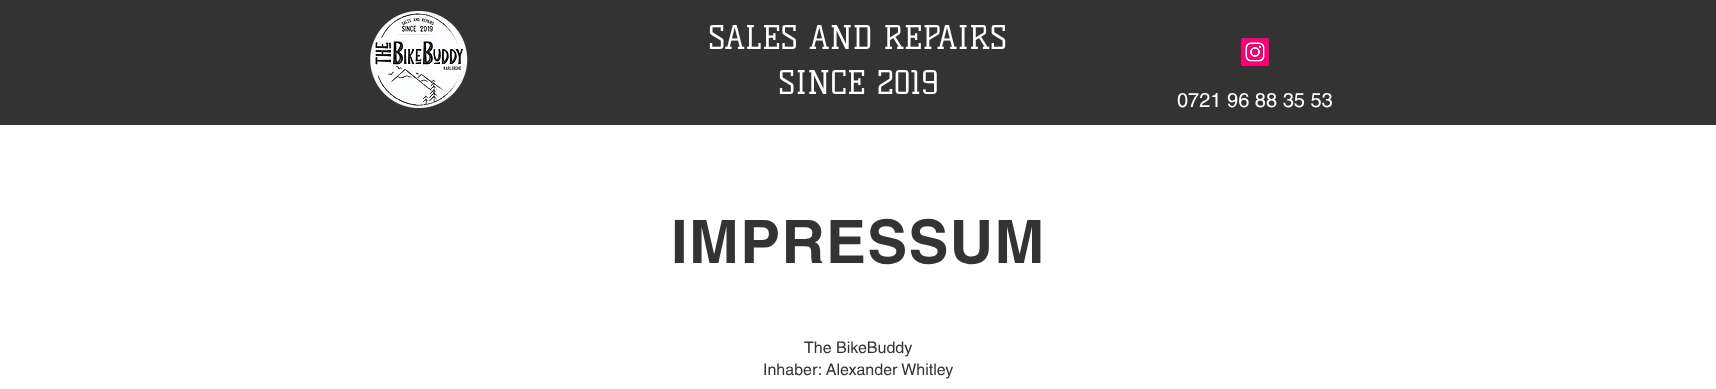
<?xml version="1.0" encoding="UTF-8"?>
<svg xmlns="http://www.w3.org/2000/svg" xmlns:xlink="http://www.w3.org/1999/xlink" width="1716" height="389">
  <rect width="100%" height="100%" fill="#ffffff" />
  <rect width="1716" height="125" fill="#333333" />
  <image x="370" y="11" width="98" height="97" xlink:href="image1.png" />
  <image x="1241" y="38" width="28" height="28" xlink:href="image2.png" />
  <text x="708" y="49" style="font-family: Kelly Slab; font-size: 32px; fill: #ffffff">SALES AND REPAIRS</text>
  <text x="778" y="94" style="font-family: Kelly Slab; font-size: 32px; fill: #ffffff">SINCE 2019</text>
  <text x="1177" y="107" style="font-family: helvetica; font-size: 20px; fill: #ffffff">0721 96 88 35 53</text>
  <text x="671" y="263" style="font-family: helvetica; font-size: 60px; font-weight: bold; letter-spacing: 1.25px; fill: #333333">IMPRESSUM</text>
  <text x="804" y="353" style="font-family: helvetica; font-size: 16px; fill: #333333">The BikeBuddy</text>
  <text x="763" y="375" style="font-family: helvetica; font-size: 16px; fill: #333333">Inhaber: Alexander Whitley</text>
</svg>
